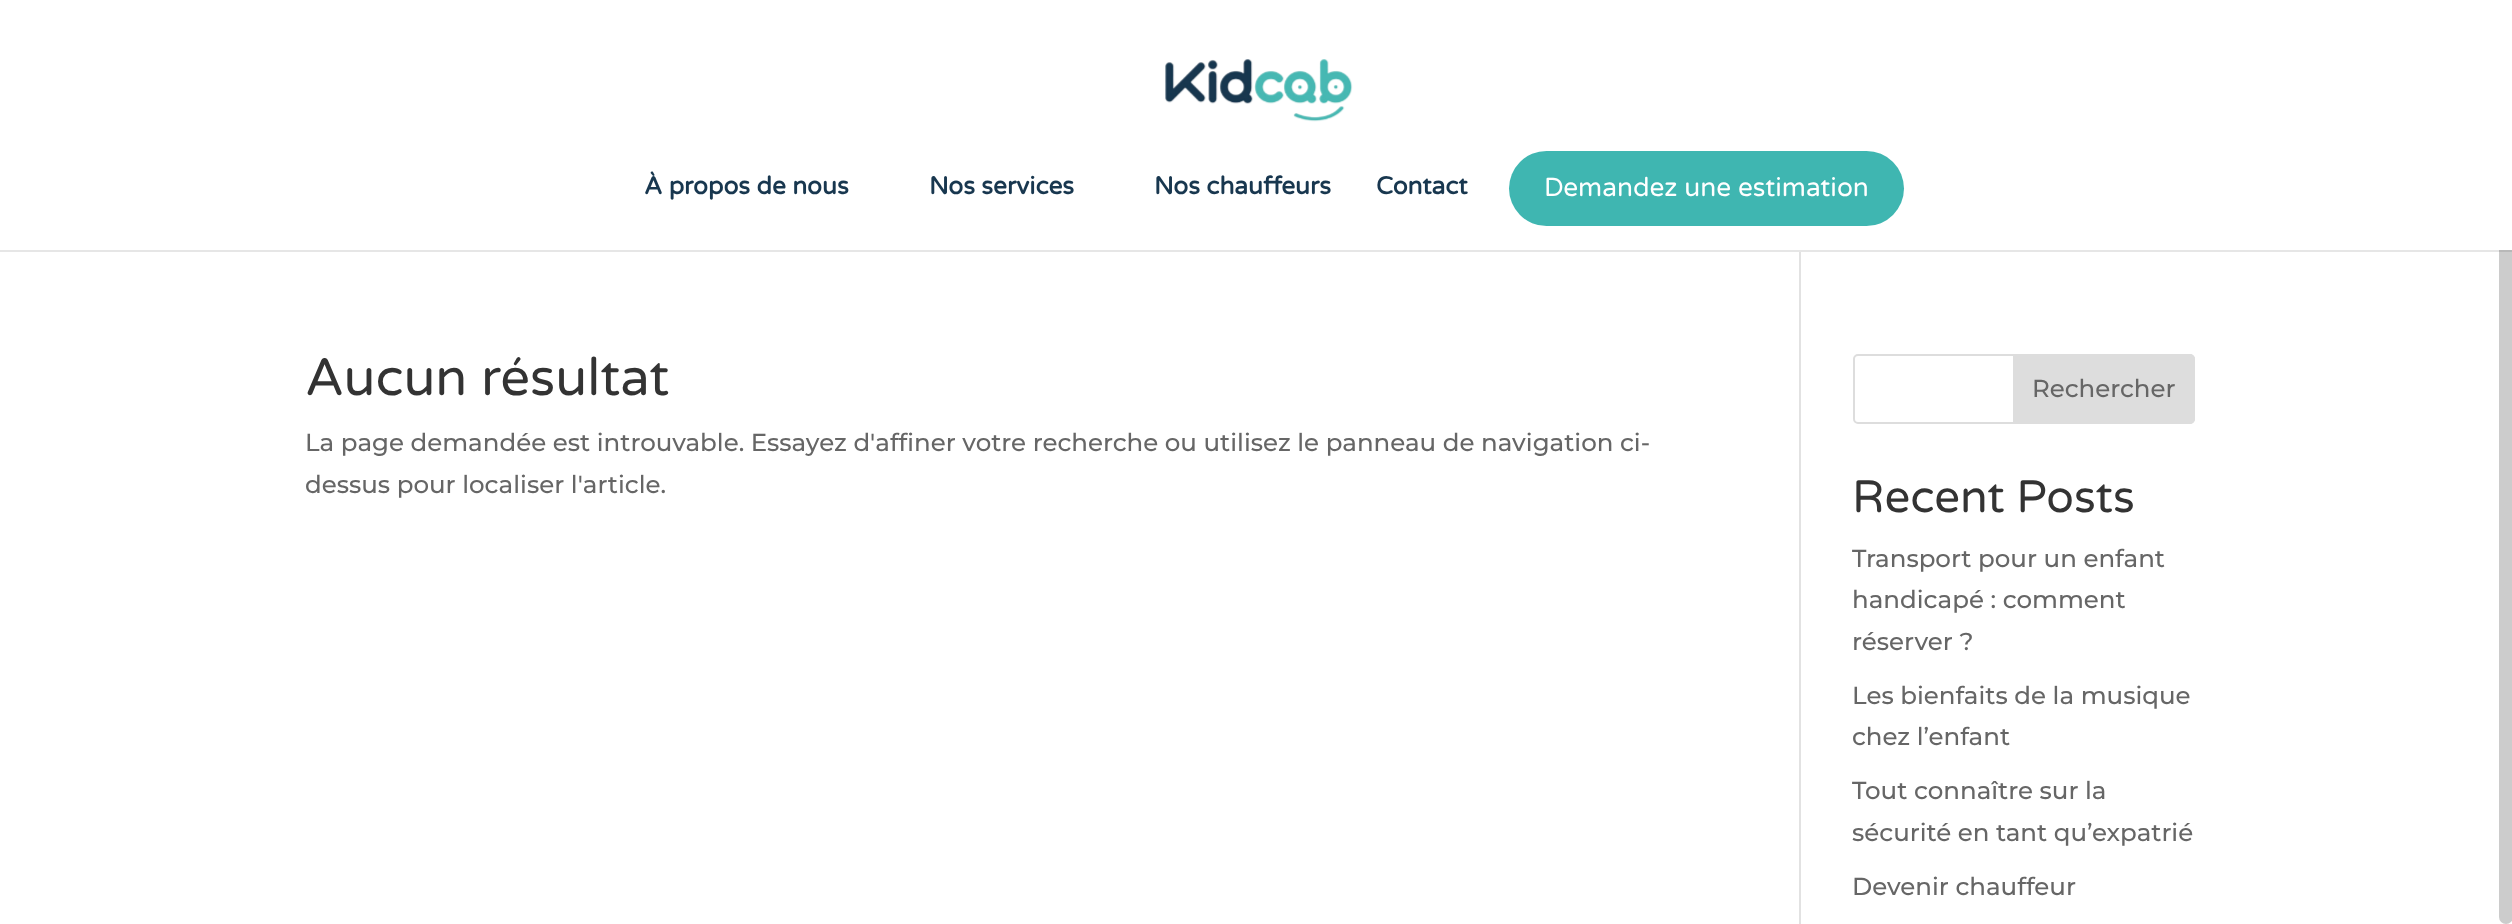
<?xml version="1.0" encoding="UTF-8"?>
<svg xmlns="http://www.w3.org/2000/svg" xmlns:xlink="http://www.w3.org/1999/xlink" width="2512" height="924">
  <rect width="100%" height="100%" fill="#ffffff" />
  <rect y="250" width="2499" height="2" fill="#e6e6e6" />
  <rect x="2499" width="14" height="924" rx="7" fill="#cccccc" />
  <rect x="2499" width="13" height="250" fill="#ffffff" />
  <image x="1165" y="59" width="188" height="63" xlink:href="image1.png" />
  <rect x="1509" y="151" width="395" height="75" rx="37.5" fill="#3fb6b1" />
  <rect x="1799" y="252" width="2" height="672" fill="#e2e2e2" />
  <rect x="1854" y="355" width="340" height="68" rx="4" fill="none" stroke="#dddddd" stroke-width="2" />
  <path d="M 2014 355 h 176 c 2 0 4 2 4 4 v 60 c 0 2 -2 4 -4 4 h -176 z" fill="#dddddd" stroke="#dddddd" stroke-width="2" />
  <rect x="2499" y="250" width="13" height="2" fill="#b8b8b8" />
  <text x="644" y="194" style="font-family: Varela Round; font-size: 24.5px; font-weight: bold; fill: #18374f">À propos de nous</text>
  <text x="929" y="194" style="font-family: Varela Round; font-size: 24.5px; font-weight: bold; fill: #18374f">Nos services</text>
  <text x="1154" y="194" style="font-family: Varela Round; font-size: 24.5px; font-weight: bold; fill: #18374f">Nos chauffeurs</text>
  <text x="1376" y="194" style="font-family: Varela Round; font-size: 24.5px; font-weight: bold; fill: #18374f">Contact</text>
  <text x="1544" y="196" style="font-family: Varela Round; font-size: 26.25px; fill: #ffffff">Demandez une estimation</text>
  <text x="305" y="395" style="font-family: Varela Round; font-size: 52.5px; fill: #333333">Aucun résultat</text>
  <text x="305" y="451" style="font-family: Montserrat; font-size: 24.5px; font-weight: 500; fill: #666666">La page demandée est introuvable. Essayez d'affiner votre recherche ou utilisez le panneau de navigation ci-</text>
  <text x="305" y="493" style="font-family: Montserrat; font-size: 24.5px; font-weight: 500; fill: #666666">dessus pour localiser l'article.</text>
  <text x="2032" y="397" style="font-family: Montserrat; font-size: 24.5px; font-weight: 500; fill: #666666">Rechercher</text>
  <text x="1852" y="512" style="font-family: Varela Round; font-size: 45.5px; fill: #333333">Recent Posts</text>
  <text x="1852" y="567" style="font-family: Montserrat; font-size: 24.5px; font-weight: 500; fill: #666666">Transport pour un enfant</text>
  <text x="1852" y="608" style="font-family: Montserrat; font-size: 24.5px; font-weight: 500; fill: #666666">handicapé : comment</text>
  <text x="1852" y="650" style="font-family: Montserrat; font-size: 24.5px; font-weight: 500; fill: #666666">réserver ?</text>
  <text x="1852" y="704" style="font-family: Montserrat; font-size: 24.5px; font-weight: 500; fill: #666666">Les bienfaits de la musique</text>
  <text x="1852" y="745" style="font-family: Montserrat; font-size: 24.5px; font-weight: 500; fill: #666666">chez l’enfant</text>
  <text x="1852" y="799" style="font-family: Montserrat; font-size: 24.5px; font-weight: 500; fill: #666666">Tout connaître sur la</text>
  <text x="1852" y="841" style="font-family: Montserrat; font-size: 24.5px; font-weight: 500; fill: #666666">sécurité en tant qu’expatrié</text>
  <text x="1852" y="895" style="font-family: Montserrat; font-size: 24.5px; font-weight: 500; fill: #666666">Devenir chauffeur</text>
</svg>
